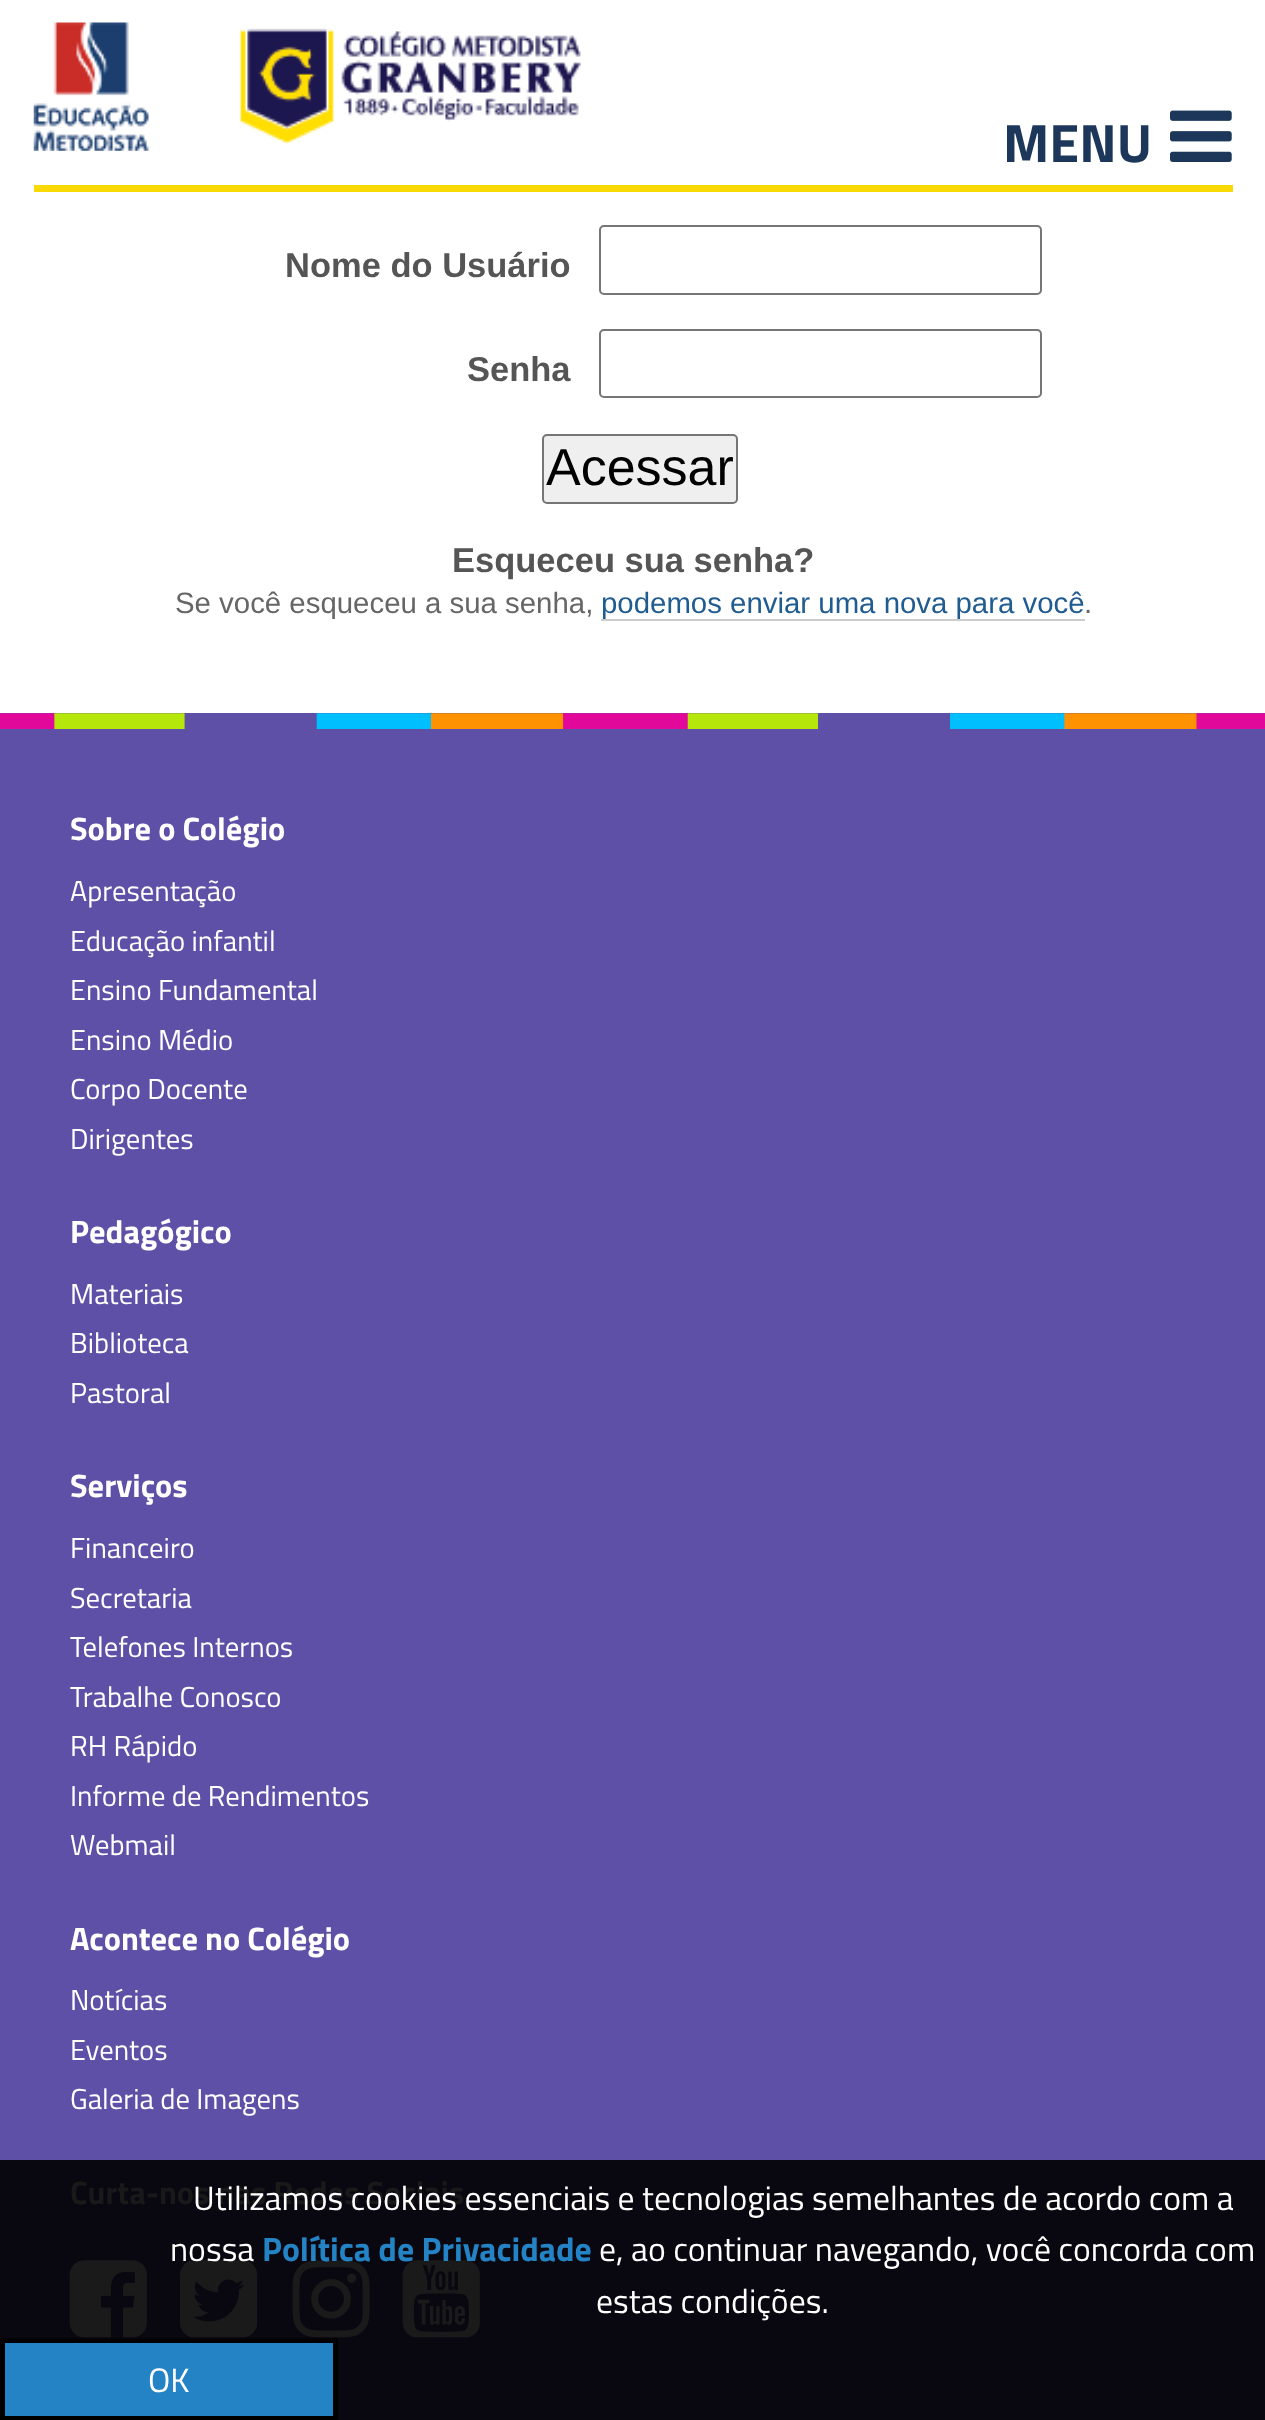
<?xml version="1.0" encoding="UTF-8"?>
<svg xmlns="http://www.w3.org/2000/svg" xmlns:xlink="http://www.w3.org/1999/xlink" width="1265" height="2420">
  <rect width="100%" height="100%" fill="#ffffff" />
  <image x="33" y="22" width="548" height="129" xlink:href="image1.png" />
  <rect x="34" y="185" width="1199" height="7" fill="#f9d903" />
  <image x="1170" y="110" width="62" height="52" xlink:href="image2.png" />
  <rect x="600" y="226" width="441" height="68" rx="4" fill="none" stroke="#767676" stroke-width="2" />
  <rect x="600" y="330" width="441" height="67" rx="4" fill="none" stroke="#767676" stroke-width="2" />
  <rect x="543" y="435" width="194" height="68" rx="4" fill="#efefef" stroke="#767676" stroke-width="2" />
  <rect x="601" y="619" width="484" height="2" fill="#cccccc" />
  <rect y="713" width="1265" height="1447" fill="#5d50a6" />
  <rect y="2160" width="1265" height="260" fill="#090811" />
  <image x="0" y="713" width="1265" height="16" xlink:href="image3.png" />
  <image x="69" y="2260" width="78" height="78" xlink:href="image4.png" />
  <image x="180" y="2260" width="78" height="78" xlink:href="image5.png" />
  <image x="292" y="2260" width="78" height="78" xlink:href="image6.png" />
  <image x="402" y="2260" width="78" height="78" xlink:href="image7.png" />
  <rect x="2.5" y="2340.5" width="333" height="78" fill="#2383c5" stroke="#000000" stroke-width="5" />
  <text x="1003" y="162" style="font-family: Titillium Web; font-size: 54px; font-weight: bold; fill: #1c3759">MENU</text>
  <text x="285" y="277" style="font-family: Liberation Sans; font-size: 34.5px; font-weight: bold; fill: #555555">Nome do Usuário</text>
  <text x="467" y="381" style="font-family: Liberation Sans; font-size: 34.5px; font-weight: bold; fill: #555555">Senha</text>
  <text x="546" y="485" style="font-family: Liberation Sans; font-size: 52px; fill: #000000">Acessar</text>
  <text x="452" y="572" style="font-family: Liberation Sans; font-size: 34.5px; font-weight: bold; fill: #555555">Esqueceu sua senha?</text>
  <text x="175" y="613" style="font-family: Liberation Sans; font-size: 29.4px; fill: #666666">Se você esqueceu a sua senha,</text>
  <text x="601" y="613" style="font-family: Liberation Sans; font-size: 29.4px; fill: #205c90">podemos enviar uma nova para você</text>
  <text x="1084" y="613" style="font-family: Liberation Sans; font-size: 29.4px; fill: #666666">.</text>
  <text x="70" y="840" style="font-family: Titillium Web; font-size: 32.4px; font-weight: bold; fill: #ffffff">Sobre o Colégio</text>
  <text x="70" y="901" style="font-family: Titillium Web; font-size: 28.75px; fill: #ffffff">Apresentação</text>
  <text x="70" y="951" style="font-family: Titillium Web; font-size: 28.75px; fill: #ffffff">Educação infantil</text>
  <text x="70" y="1000" style="font-family: Titillium Web; font-size: 28.75px; fill: #ffffff">Ensino Fundamental</text>
  <text x="70" y="1050" style="font-family: Titillium Web; font-size: 28.75px; fill: #ffffff">Ensino Médio</text>
  <text x="70" y="1099" style="font-family: Titillium Web; font-size: 28.75px; fill: #ffffff">Corpo Docente</text>
  <text x="70" y="1149" style="font-family: Titillium Web; font-size: 28.75px; fill: #ffffff">Dirigentes</text>
  <text x="70" y="1243" style="font-family: Titillium Web; font-size: 32.4px; font-weight: bold; fill: #ffffff">Pedagógico</text>
  <text x="70" y="1304" style="font-family: Titillium Web; font-size: 28.75px; fill: #ffffff">Materiais</text>
  <text x="70" y="1353" style="font-family: Titillium Web; font-size: 28.75px; fill: #ffffff">Biblioteca</text>
  <text x="70" y="1403" style="font-family: Titillium Web; font-size: 28.75px; fill: #ffffff">Pastoral</text>
  <text x="70" y="1497" style="font-family: Titillium Web; font-size: 32.4px; font-weight: bold; fill: #ffffff">Serviços</text>
  <text x="70" y="1558" style="font-family: Titillium Web; font-size: 28.75px; fill: #ffffff">Financeiro</text>
  <text x="70" y="1608" style="font-family: Titillium Web; font-size: 28.75px; fill: #ffffff">Secretaria</text>
  <text x="70" y="1657" style="font-family: Titillium Web; font-size: 28.75px; fill: #ffffff">Telefones Internos</text>
  <text x="70" y="1707" style="font-family: Titillium Web; font-size: 28.75px; fill: #ffffff">Trabalhe Conosco</text>
  <text x="70" y="1756" style="font-family: Titillium Web; font-size: 28.75px; fill: #ffffff">RH Rápido</text>
  <text x="70" y="1806" style="font-family: Titillium Web; font-size: 28.75px; fill: #ffffff">Informe de Rendimentos</text>
  <text x="70" y="1855" style="font-family: Titillium Web; font-size: 28.75px; fill: #ffffff">Webmail</text>
  <text x="70" y="1950" style="font-family: Titillium Web; font-size: 32.4px; font-weight: bold; fill: #ffffff">Acontece no Colégio</text>
  <text x="70" y="2010" style="font-family: Titillium Web; font-size: 28.75px; fill: #ffffff">Notícias</text>
  <text x="70" y="2060" style="font-family: Titillium Web; font-size: 28.75px; fill: #ffffff">Eventos</text>
  <text x="70" y="2109" style="font-family: Titillium Web; font-size: 28.75px; fill: #ffffff">Galeria de Imagens</text>
  <text x="70" y="2204" style="font-family: Titillium Web; font-size: 32.4px; font-weight: bold; fill: #191919">Curta-nos nas Redes Sociais</text>
  <text x="193" y="2210" style="font-family: Titillium Web; font-size: 33.75px; fill: #ffffff">Utilizamos cookies essenciais e tecnologias semelhantes de acordo com a</text>
  <text x="170" y="2261" style="font-family: Titillium Web; font-size: 33.75px; fill: #ffffff">nossa</text>
  <text x="262" y="2261" style="font-family: Titillium Web; font-size: 33.75px; font-weight: bold; fill: #2383c5">Política de Privacidade</text>
  <text x="599" y="2261" style="font-family: Titillium Web; font-size: 33.75px; fill: #ffffff">e, ao continuar navegando, você concorda com</text>
  <text x="596" y="2313" style="font-family: Titillium Web; font-size: 33.75px; fill: #ffffff">estas condições.</text>
  <text x="148" y="2392" style="font-family: Titillium Web; font-size: 33.75px; fill: #ffffff">OK</text>
</svg>
